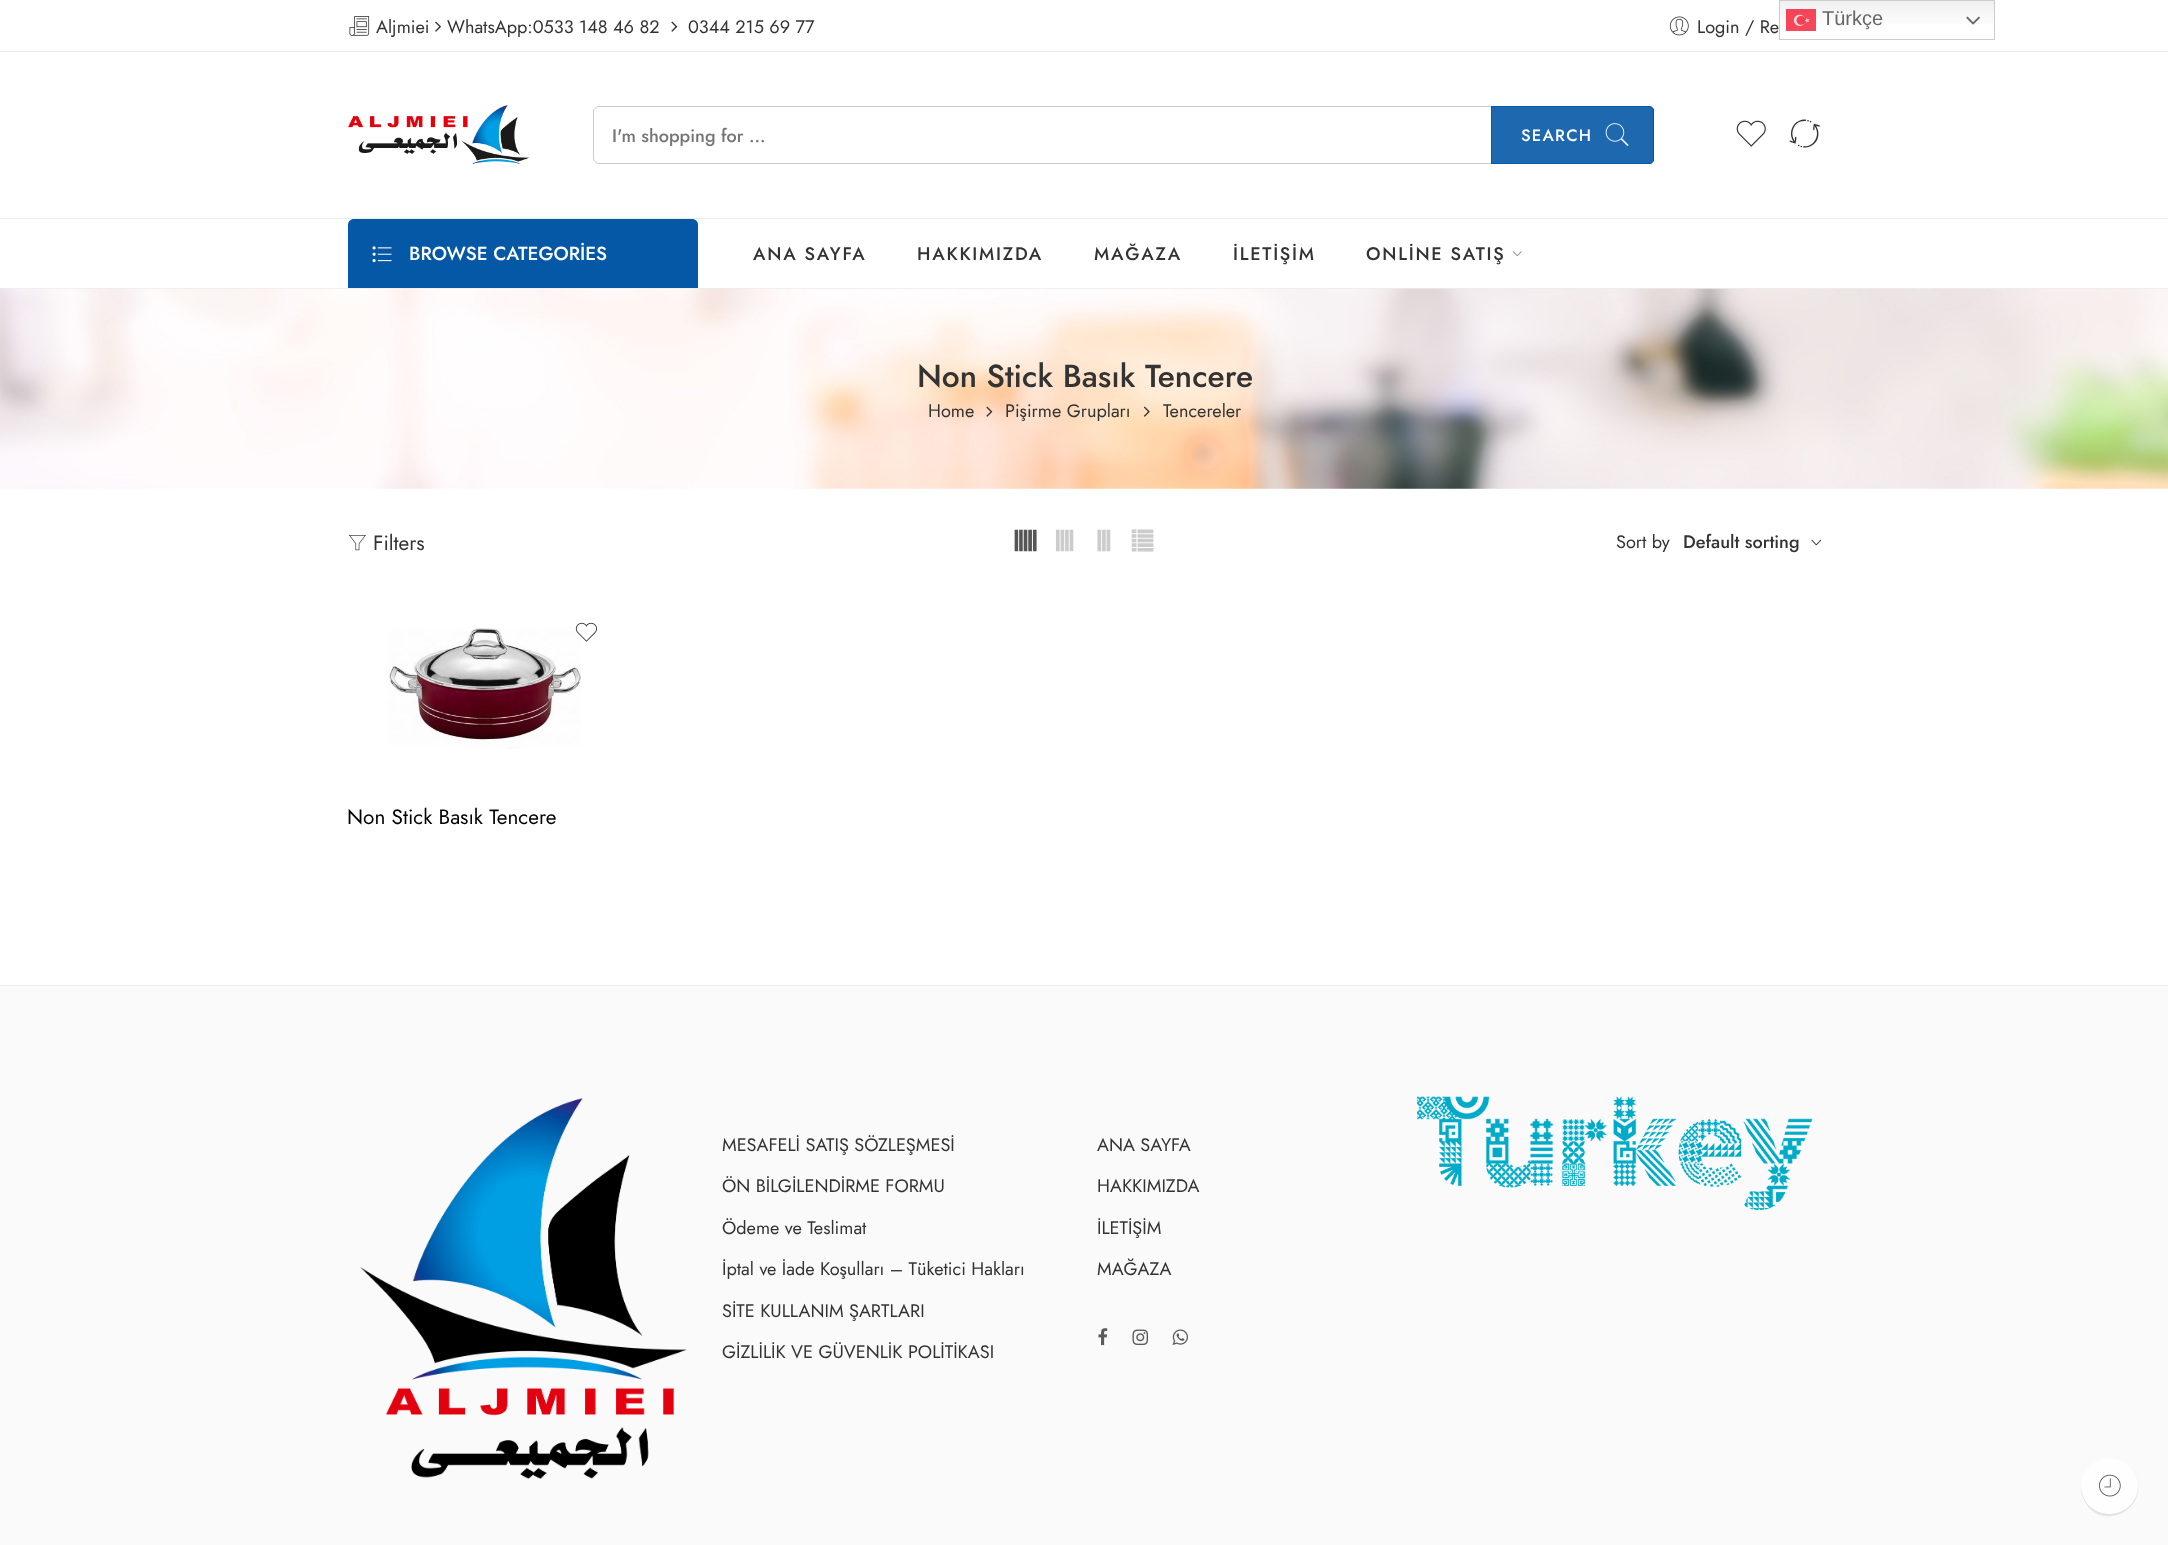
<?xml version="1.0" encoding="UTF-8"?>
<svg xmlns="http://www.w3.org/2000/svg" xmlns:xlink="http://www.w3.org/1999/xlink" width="2168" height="1545">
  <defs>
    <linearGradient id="g1" gradientUnits="userSpaceOnUse" x1="1887" y1="0" x2="1887" y2="40"><stop offset="0" stop-color="#efefef" /><stop offset="0.7" stop-color="#ffffff" /></linearGradient>
  </defs>
  <rect width="100%" height="100%" fill="#ffffff" />
  <rect y="51" width="2168" height="1" fill="#ececec" />
  <image x="349" y="16" width="21" height="20" xlink:href="image1.png" />
  <image x="435" y="21" width="6" height="11" xlink:href="image2.png" />
  <image x="671" y="21" width="7" height="11" xlink:href="image3.png" />
  <image x="1669" y="16" width="20" height="20" xlink:href="image4.png" />
  <image x="348" y="105" width="182" height="59" xlink:href="image5.png" />
  <rect x="593.5" y="106.5" width="1059" height="57" rx="5.5" fill="none" stroke="#cccccc" />
  <path d="M 1491 106 h 158 c 3 0 5 2 5 5 v 48 c 0 3 -2 5 -5 5 h -158 z" fill="#0458a6" fill-opacity="0.9" />
  <path d="M 1491 106 v 58 h 158 c 1 0 2 0 3 -1 h -160 v -56 h 160 l -3 -1 z m 162 2 v 54 c 1 -1 1 -2 1 -3 v -48 c 0 -1 0 -2 -1 -3 z" fill="#0458a6" fill-opacity="0.9" fill-rule="evenodd" />
  <image x="1605" y="123" width="24" height="24" xlink:href="image6.png" />
  <image x="1736" y="120" width="30" height="27" xlink:href="image7.png" />
  <rect y="218" width="2168" height="1" fill="#ececec" />
  <rect y="288" width="2168" height="1" fill="#ececec" />
  <path d="M 354 219 h 338 c 3.5 0 6 2.5 6 6 v 63 h -350 v -63 c 0 -3.5 2.5 -6 6 -6 z" fill="#0458a6" />
  <image x="372" y="246" width="20" height="17" xlink:href="image8.png" />
  <image x="1512" y="251" width="10" height="6" xlink:href="image9.png" />
  <image x="0" y="288" width="2168" height="201" xlink:href="image10.png" />
  <image x="986" y="406" width="7" height="11" xlink:href="image11.png" />
  <image x="1143" y="406" width="7" height="11" xlink:href="image12.png" />
  <image x="348" y="535" width="18" height="16" xlink:href="image13.png" />
  <image x="1811" y="539" width="11" height="7" xlink:href="image14.png" />
  <image x="388" y="627" width="193" height="122" xlink:href="image15.png" />
  <image x="575" y="622" width="22" height="20" xlink:href="image16.png" />
  <rect y="986" width="2168" height="559" fill="#fafafa" />
  <rect y="985" width="2168" height="1" fill="#ececec" />
  <image x="360" y="1098" width="327" height="381" xlink:href="image17.png" />
  <image x="1098" y="1328" width="10" height="18" xlink:href="image18.png" />
  <image x="1132" y="1329" width="17" height="17" xlink:href="image19.png" />
  <image x="1172" y="1329" width="16" height="16" xlink:href="image20.png" />
  <image x="1417" y="1096" width="396" height="114" xlink:href="image21.png" />
  <rect x="1780" y="1" width="214" height="23" fill="url(#g1)" />
  <rect x="1779.5" y="0.5" width="215" height="39" fill="none" stroke="#cccccc" />
  <image x="1786" y="9" width="30" height="22" xlink:href="image22.png" />
  <image x="1966" y="16" width="14" height="9" xlink:href="image23.png" />
  <rect x="2081.3" y="1458.3" width="57.4" height="56.4" rx="28.2" fill="none" stroke="#f2f2f2" stroke-width="0.6" />
  <path d="M 2081 1484 c -1 7 1 14 5 20 c 17 26 59 7 51 -23 c 5 29 -34 45 -51 20 c -3 -5 -5 -11 -5 -17 z" fill="#000000" fill-opacity="0.08" />
  <rect x="2081" y="1458" width="57" height="56" rx="28" fill="#fefefe" />
  <image x="2099" y="1474" width="22" height="23" xlink:href="image24.png" />
  <text x="376" y="33" style="font-family: Jost; font-size: 18.1px; fill: #333333">Aljmiei</text>
  <text x="447" y="33" style="font-family: Jost; font-size: 18.1px; fill: #333333">WhatsApp:0533 148 46 82</text>
  <text x="688" y="33" style="font-family: Jost; font-size: 18.1px; fill: #333333">0344 215 69 77</text>
  <text x="1697" y="33" style="font-family: Jost; font-size: 18.1px; fill: #333333">Login / Re</text>
  <text x="612" y="142" style="font-family: Jost; font-size: 18.1px; font-weight: 500; fill: #757575">I'm shopping for ...</text>
  <text x="1521" y="141" style="font-family: Jost; font-size: 16.5px; font-weight: 500; letter-spacing: 1.25px; fill: #ffffff">SEARCH</text>
  <text x="1787" y="153" style="font-family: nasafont; font-size: 35px; fill: #333333">3</text>
  <text x="409" y="260" style="font-family: Jost; font-size: 19px; font-weight: 500; fill: #ffffff">BROWSE CATEGORİES</text>
  <text x="753" y="260" style="font-family: Jost; font-size: 18.1px; font-weight: 500; letter-spacing: 1.75px; fill: #333333">ANA SAYFA</text>
  <text x="917" y="260" style="font-family: Jost; font-size: 18.1px; font-weight: 500; letter-spacing: 1.75px; fill: #333333">HAKKIMIZDA</text>
  <text x="1094" y="260" style="font-family: Jost; font-size: 18.1px; font-weight: 500; letter-spacing: 1.75px; fill: #333333">MAĞAZA</text>
  <text x="1233" y="260" style="font-family: Jost; font-size: 18.1px; font-weight: 500; letter-spacing: 1.75px; fill: #333333">İLETİŞİM</text>
  <text x="1366" y="260" style="font-family: Jost; font-size: 18.1px; font-weight: 500; letter-spacing: 1.75px; fill: #333333">ONLİNE SATIŞ</text>
  <text x="917" y="387" style="font-family: Jost; font-size: 31.75px; font-weight: 500; fill: #333333">Non Stick Basık Tencere</text>
  <text x="928" y="417" style="font-family: Jost; font-size: 18.1px; fill: #333333">Home</text>
  <text x="1005" y="417" style="font-family: Jost; font-size: 18.1px; fill: #333333">Pişirme Grupları</text>
  <text x="1163" y="417" style="font-family: Jost; font-size: 18.1px; fill: #333333">Tencereler</text>
  <text x="373" y="550" style="font-family: Jost; font-size: 20.75px; fill: #333333">Filters</text>
  <text x="1012" y="554" style="font-family: nasafont; font-size: 27px; fill: #555555">!</text>
  <text x="1051" y="554" style="font-family: nasafont; font-size: 27px; fill: #cccccc">9</text>
  <text x="1090" y="554" style="font-family: nasafont; font-size: 27px; fill: #cccccc">8</text>
  <text x="1129" y="554" style="font-family: nasafont; font-size: 27px; fill: #cccccc">#</text>
  <text x="1616" y="548" style="font-family: Jost; font-size: 18.1px; fill: #333333">Sort by</text>
  <text x="1683" y="548" style="font-family: Jost; font-size: 18.1px; font-weight: 500; fill: #333333">Default sorting</text>
  <text x="347" y="824" style="font-family: Jost; font-size: 20.75px; fill: #000000">Non Stick Basık Tencere</text>
  <text x="722" y="1151" style="font-family: Jost; font-size: 18.1px; fill: #333333">MESAFELİ SATIŞ SÖZLEŞMESİ</text>
  <text x="722" y="1192" style="font-family: Jost; font-size: 18.1px; fill: #333333">ÖN BİLGİLENDİRME FORMU</text>
  <text x="722" y="1234" style="font-family: Jost; font-size: 18.1px; fill: #333333">Ödeme ve Teslimat</text>
  <text x="722" y="1275" style="font-family: Jost; font-size: 18.1px; fill: #333333">İptal ve İade Koşulları – Tüketici Hakları</text>
  <text x="722" y="1317" style="font-family: Jost; font-size: 18.1px; fill: #333333">SİTE KULLANIM ŞARTLARI</text>
  <text x="722" y="1358" style="font-family: Jost; font-size: 18.1px; fill: #333333">GİZLİLİK VE GÜVENLİK POLİTİKASI</text>
  <text x="1097" y="1151" style="font-family: Jost; font-size: 18.1px; fill: #333333">ANA SAYFA</text>
  <text x="1097" y="1192" style="font-family: Jost; font-size: 18.1px; fill: #333333">HAKKIMIZDA</text>
  <text x="1097" y="1234" style="font-family: Jost; font-size: 18.1px; fill: #333333">İLETİŞİM</text>
  <text x="1097" y="1275" style="font-family: Jost; font-size: 18.1px; fill: #333333">MAĞAZA</text>
  <text x="1822" y="25" style="font-family: Liberation Sans; font-size: 20px; fill: #666666">Türkçe</text>
</svg>
